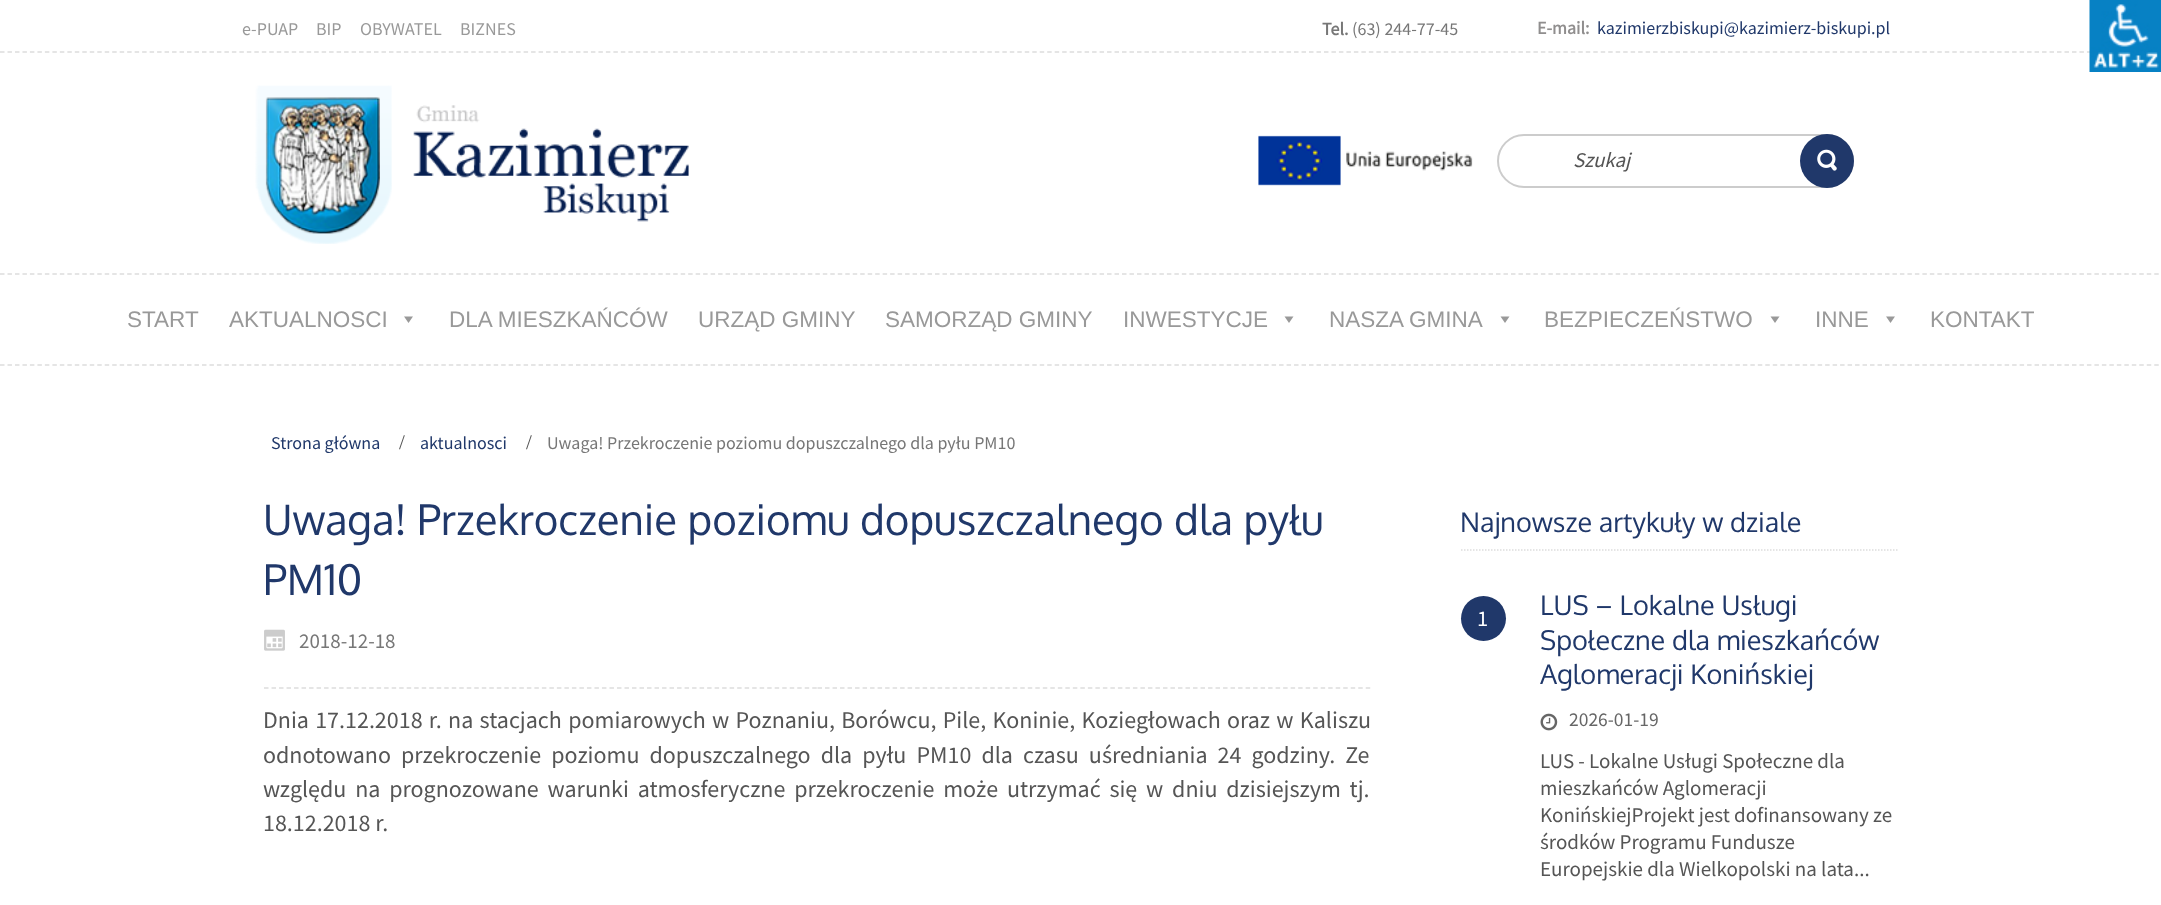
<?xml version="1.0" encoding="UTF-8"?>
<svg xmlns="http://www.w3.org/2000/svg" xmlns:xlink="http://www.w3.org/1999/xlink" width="2161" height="905">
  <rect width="100%" height="100%" fill="#ffffff" />
  <path d="M 0 365 h 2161.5" fill="none" stroke="#dddddd" stroke-width="1.5" stroke-dasharray="4.5 2.98" />
  <path d="M 0 52 h 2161.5" fill="none" stroke="#dddddd" stroke-width="1.5" stroke-dasharray="4.5 2.98" />
  <path d="M 0 274 h 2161.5" fill="none" stroke="#dddddd" stroke-width="1.5" stroke-dasharray="4.5 2.98" />
  <image x="255" y="85" width="434" height="159" xlink:href="image1.png" />
  <image x="1258" y="135" width="215" height="51" xlink:href="image2.png" />
  <rect x="1498" y="135" width="355" height="52" rx="26" fill="none" stroke="#cccccc" stroke-width="2" />
  <circle cx="1827" cy="161" r="27" fill="#20386a" />
  <image x="1817" y="149" width="20" height="22" xlink:href="image3.png" />
  <path d="M 413 316.5 l -4.5 6.5 l -4.5 -6.5 z" fill="#999999" />
  <path d="M 1293.5 316.5 l -4.5 6.5 l -4.5 -6.5 z" fill="#999999" />
  <path d="M 1509.5 316.5 l -4.5 6.5 l -4.5 -6.5 z" fill="#999999" />
  <path d="M 1779.5 316.5 l -4.5 6.5 l -4.5 -6.5 z" fill="#999999" />
  <path d="M 1895 316.5 l -4.5 6.5 l -4.5 -6.5 z" fill="#999999" />
  <image x="2089" y="0" width="72" height="72" xlink:href="image4.png" />
  <image x="264" y="629" width="21" height="22" xlink:href="image5.png" />
  <path d="M 264 688 h 553.5" fill="none" stroke="#dddddd" stroke-width="1.5" stroke-dasharray="4.5 3.01" />
  <path d="M 817.5 688 h 553.5" fill="none" stroke="#dddddd" stroke-width="1.5" stroke-dasharray="4.5 3.01" />
  <path d="M 1461 550 h 438" fill="none" stroke="#dddddd" stroke-width="1.5" stroke-dasharray="1.5 1.5" />
  <circle cx="1483.5" cy="618.5" r="22.5" fill="#20386a" />
  <image x="1540" y="713" width="18" height="18" xlink:href="image6.png" />
  <text x="242" y="35" style="font-family: Source Sans Pro; font-size: 18px; fill: #999999">e-PUAP</text>
  <text x="316" y="35" style="font-family: Source Sans Pro; font-size: 18px; fill: #999999">BIP</text>
  <text x="360" y="35" style="font-family: Source Sans Pro; font-size: 18px; fill: #999999">OBYWATEL</text>
  <text x="460" y="35" style="font-family: Source Sans Pro; font-size: 18px; fill: #999999">BIZNES</text>
  <text x="1322" y="35" style="font-family: Source Sans Pro; font-size: 18px; font-weight: bold; fill: #777777">Tel.</text>
  <text x="1352" y="35" style="font-family: Source Sans Pro; font-size: 18px; fill: #777777">(63) 244-77-45</text>
  <text x="1537" y="34" style="font-family: Source Sans Pro; font-size: 18px; font-weight: bold; fill: #908e8e">E-mail:</text>
  <text x="1597" y="34" style="font-family: Source Sans Pro; font-size: 18px; fill: #20386a">kazimierzbiskupi@kazimierz-biskupi.pl</text>
  <text x="1573" y="167" style="font-family: Source Sans Pro; font-size: 21px; font-style: italic; fill: #555555">Szukaj</text>
  <text x="127" y="327" style="font-family: Liberation Sans; font-size: 22.5px; fill: #999999">START</text>
  <text x="229" y="327" style="font-family: Liberation Sans; font-size: 22.5px; fill: #999999">AKTUALNOSCI</text>
  <text x="449" y="327" style="font-family: Liberation Sans; font-size: 22.5px; fill: #999999">DLA MIESZKAŃCÓW</text>
  <text x="698" y="327" style="font-family: Liberation Sans; font-size: 22.5px; fill: #999999">URZĄD GMINY</text>
  <text x="885" y="327" style="font-family: Liberation Sans; font-size: 22.5px; fill: #999999">SAMORZĄD GMINY</text>
  <text x="1123" y="327" style="font-family: Liberation Sans; font-size: 22.5px; fill: #999999">INWESTYCJE</text>
  <text x="1329" y="327" style="font-family: Liberation Sans; font-size: 22.5px; fill: #999999">NASZA GMINA</text>
  <text x="1544" y="327" style="font-family: Liberation Sans; font-size: 22.5px; fill: #999999">BEZPIECZEŃSTWO</text>
  <text x="1815" y="327" style="font-family: Liberation Sans; font-size: 22.5px; fill: #999999">INNE</text>
  <text x="1930" y="327" style="font-family: Liberation Sans; font-size: 22.5px; fill: #999999">KONTAKT</text>
  <text x="271" y="449" style="font-family: Source Sans Pro; font-size: 18px; fill: #20386a">Strona główna</text>
  <text x="399" y="449" style="font-family: Liberation Serif; font-size: 21px; fill: #555555">/</text>
  <text x="420" y="449" style="font-family: Source Sans Pro; font-size: 18px; fill: #20386a">aktualnosci</text>
  <text x="526" y="449" style="font-family: Liberation Serif; font-size: 21px; fill: #555555">/</text>
  <text x="547" y="449" style="font-family: Source Sans Pro; font-size: 18px; fill: #777777">Uwaga! Przekroczenie poziomu dopuszczalnego dla pyłu PM10</text>
  <text x="263" y="535" style="font-family: Oxygen; font-size: 42px; fill: #20386a">Uwaga! Przekroczenie poziomu dopuszczalnego dla pyłu</text>
  <text x="263" y="595" style="font-family: Oxygen; font-size: 42px; fill: #20386a">PM10</text>
  <text x="299" y="648" style="font-family: Source Sans Pro; font-size: 21px; fill: #777777">2018-12-18</text>
  <text x="263" y="728" word-spacing="1.5" style="font-family: Source Sans Pro; font-size: 24px; fill: #555555">Dnia 17.12.2018 r. na stacjach pomiarowych w Poznaniu, Borówcu, Pile, Koninie, Koziegłowach oraz w Kaliszu</text>
  <text x="263" y="763" word-spacing="5.25" style="font-family: Source Sans Pro; font-size: 24px; fill: #555555">odnotowano przekroczenie poziomu dopuszczalnego dla pyłu PM10 dla czasu uśredniania 24 godziny. Ze</text>
  <text x="263" y="797" word-spacing="4" style="font-family: Source Sans Pro; font-size: 24px; fill: #555555">względu na prognozowane warunki atmosferyczne przekroczenie może utrzymać się w dniu dzisiejszym tj.</text>
  <text x="263" y="831" style="font-family: Source Sans Pro; font-size: 24px; fill: #555555">18.12.2018 r.</text>
  <text x="1460" y="532" style="font-family: Oxygen; font-size: 27px; fill: #20386a">Najnowsze artykuły w dziale</text>
  <text x="1477" y="626" style="font-family: Source Sans Pro; font-size: 22.5px; fill: #ffffff">1</text>
  <text x="1540" y="615" style="font-family: Oxygen; font-size: 27px; fill: #20386a">LUS – Lokalne Usługi</text>
  <text x="1540" y="650" style="font-family: Oxygen; font-size: 27px; fill: #20386a">Społeczne dla mieszkańców</text>
  <text x="1540" y="684" style="font-family: Oxygen; font-size: 27px; fill: #20386a">Aglomeracji Konińskiej</text>
  <text x="1569" y="726" style="font-family: Source Sans Pro; font-size: 19.5px; fill: #666666">2026-01-19</text>
  <text x="1540" y="768" style="font-family: Source Sans Pro; font-size: 21px; fill: #555555">LUS - Lokalne Usługi Społeczne dla</text>
  <text x="1540" y="795" style="font-family: Source Sans Pro; font-size: 21px; fill: #555555">mieszkańców Aglomeracji</text>
  <text x="1540" y="822" style="font-family: Source Sans Pro; font-size: 21px; fill: #555555">KonińskiejProjekt jest dofinansowany ze</text>
  <text x="1540" y="849" style="font-family: Source Sans Pro; font-size: 21px; fill: #555555">środków Programu Fundusze</text>
  <text x="1540" y="876" style="font-family: Source Sans Pro; font-size: 21px; fill: #555555">Europejskie dla Wielkopolski na lata...</text>
</svg>
